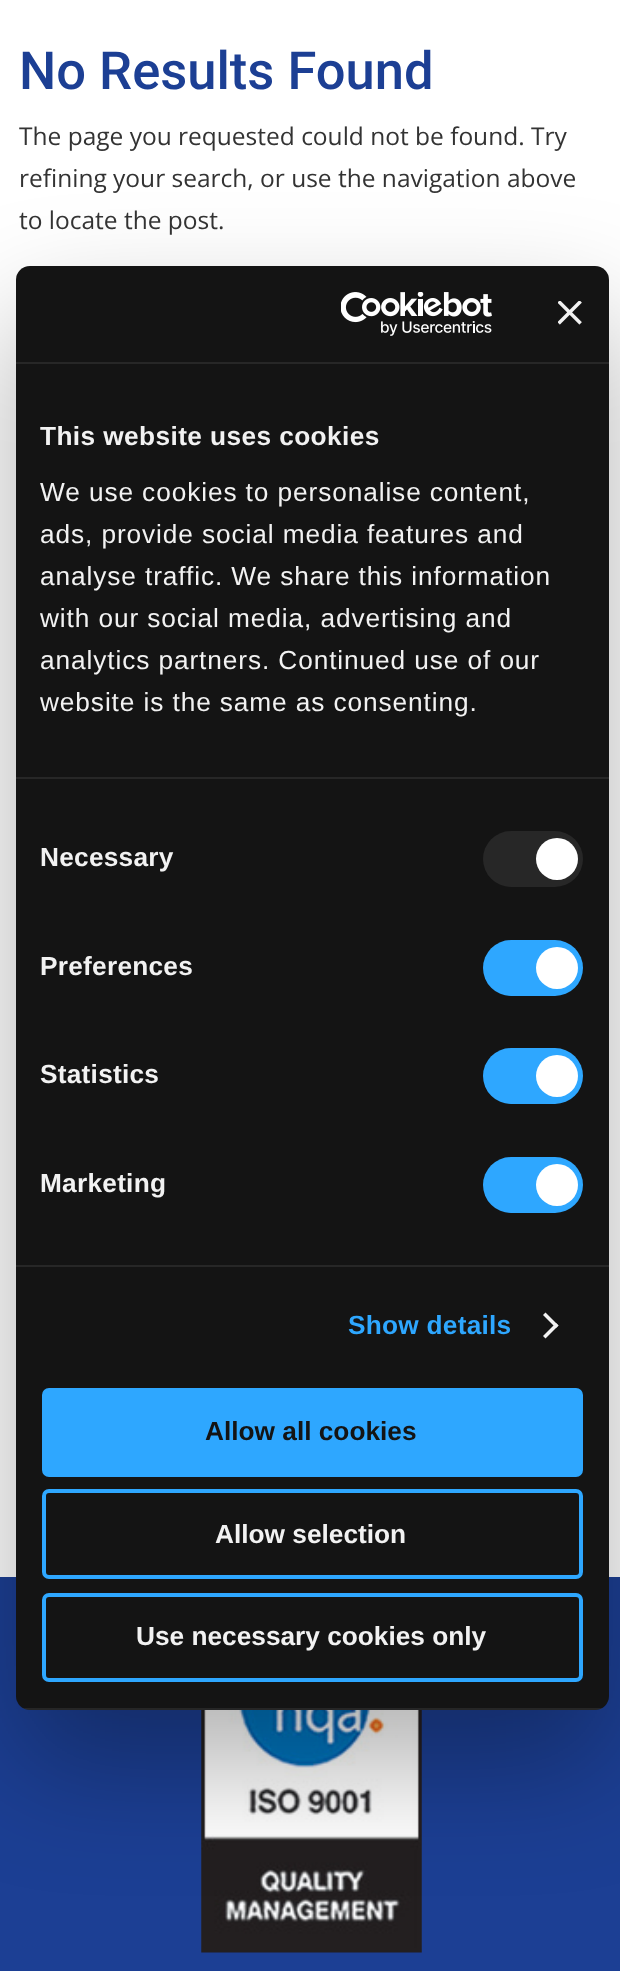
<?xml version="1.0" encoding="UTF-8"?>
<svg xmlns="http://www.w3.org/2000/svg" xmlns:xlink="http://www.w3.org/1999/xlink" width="620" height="1971">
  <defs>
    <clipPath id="clip1"><rect x="16" y="266" width="593" height="1444" rx="14" /></clipPath>
  </defs>
  <rect width="100%" height="100%" fill="#ffffff" />
  <rect y="1577" width="620" height="394" fill="#1c3f94" />
  <image x="201" y="1710" width="221" height="243" xlink:href="image1.png" />
  <rect x="16" y="322" width="593" height="1444" rx="14" fill="#000000" fill-opacity="0.3" filter="blur(59.5px)" />
  <rect x="16" y="266" width="593" height="1444" rx="14" fill="#141414" />
  <rect x="16" y="362" width="593" height="2" fill="#272727" />
  <image x="341" y="292" width="151" height="44" xlink:href="image2.png" />
  <image x="558" y="301" width="24" height="24" xlink:href="image3.png" />
  <rect x="16" y="777" width="593" height="2" fill="#272727" />
  <rect x="16" y="1265" width="593" height="2" fill="#272727" />
  <rect x="483" y="831" width="100" height="56" rx="28" fill="#272727" />
  <circle cx="557" cy="859" r="21" fill="#ffffff" />
  <rect x="483" y="940" width="100" height="56" rx="28" fill="#2ea7ff" />
  <circle cx="557" cy="968" r="21" fill="#ffffff" />
  <rect x="483" y="1048" width="100" height="56" rx="28" fill="#2ea7ff" />
  <circle cx="557" cy="1076" r="21" fill="#ffffff" />
  <rect x="483" y="1157" width="100" height="56" rx="28" fill="#2ea7ff" />
  <circle cx="557" cy="1185" r="21" fill="#ffffff" />
  <path d="M 545.5 1312.5 l 13 13 l -2.5 2.5 l -13 -13 z" fill="#f2f2f2" />
  <path d="M 556 1323 l 2.5 2.5 l -13 13 l -2.5 -2.5 z" fill="#f2f2f2" />
  <g clip-path="url(#clip1)">
    <rect x="16" y="1708" width="593" height="2" fill="#ffffff" fill-opacity="0.08" />
  </g>
  <rect x="44" y="1390" width="537" height="85" rx="5" fill="#2ea7ff" stroke="#2ea7ff" stroke-width="4" />
  <rect x="44" y="1491" width="537" height="86" rx="5" fill="none" stroke="#2ea7ff" stroke-width="4" />
  <rect x="44" y="1595" width="537" height="85" rx="5" fill="none" stroke="#2ea7ff" stroke-width="4" />
  <text x="19" y="89" style="font-family: Roboto; font-size: 52.5px; font-weight: 500; fill: #1c3f94">No Results Found</text>
  <text x="19" y="145" style="font-family: Open Sans; font-size: 24.5px; fill: #333333">The page you requested could not be found. Try</text>
  <text x="19" y="187" style="font-family: Open Sans; font-size: 24.5px; fill: #333333">refining your search, or use the navigation above</text>
  <text x="19" y="229" style="font-family: Open Sans; font-size: 24.5px; fill: #333333">to locate the post.</text>
  <text x="40" y="445" style="font-family: Liberation Sans; font-size: 26.25px; font-weight: bold; letter-spacing: 0.4px; fill: #f2f2f2">This website uses cookies</text>
  <text x="40" y="501" style="font-family: Liberation Sans; font-size: 26.25px; letter-spacing: 0.9px; fill: #f2f2f2">We use cookies to personalise content,</text>
  <text x="40" y="543" style="font-family: Liberation Sans; font-size: 26.25px; letter-spacing: 0.9px; fill: #f2f2f2">ads, provide social media features and</text>
  <text x="40" y="585" style="font-family: Liberation Sans; font-size: 26.25px; letter-spacing: 0.9px; fill: #f2f2f2">analyse traffic. We share this information</text>
  <text x="40" y="627" style="font-family: Liberation Sans; font-size: 26.25px; letter-spacing: 0.9px; fill: #f2f2f2">with our social media, advertising and</text>
  <text x="40" y="669" style="font-family: Liberation Sans; font-size: 26.25px; letter-spacing: 0.9px; fill: #f2f2f2">analytics partners. Continued use of our</text>
  <text x="40" y="711" style="font-family: Liberation Sans; font-size: 26.25px; letter-spacing: 0.9px; fill: #f2f2f2">website is the same as consenting.</text>
  <text x="40" y="866" style="font-family: Liberation Sans; font-size: 26.25px; font-weight: bold; letter-spacing: 0.25px; fill: #f2f2f2">Necessary</text>
  <text x="40" y="975" style="font-family: Liberation Sans; font-size: 26.25px; font-weight: bold; letter-spacing: 0.25px; fill: #f2f2f2">Preferences</text>
  <text x="40" y="1083" style="font-family: Liberation Sans; font-size: 26.25px; font-weight: bold; letter-spacing: 0.25px; fill: #f2f2f2">Statistics</text>
  <text x="40" y="1192" style="font-family: Liberation Sans; font-size: 26.25px; font-weight: bold; letter-spacing: 0.25px; fill: #f2f2f2">Marketing</text>
  <text x="348" y="1334" style="font-family: Liberation Sans; font-size: 26.25px; font-weight: bold; letter-spacing: 0.25px; fill: #2ea7ff">Show details</text>
  <text x="205" y="1440" style="font-family: Liberation Sans; font-size: 26.25px; font-weight: bold; fill: #141414">Allow all cookies</text>
  <text x="215" y="1543" style="font-family: Liberation Sans; font-size: 26.25px; font-weight: bold; fill: #f2f2f2">Allow selection</text>
  <text x="136" y="1645" style="font-family: Liberation Sans; font-size: 26.25px; font-weight: bold; fill: #f2f2f2">Use necessary cookies only</text>
</svg>
